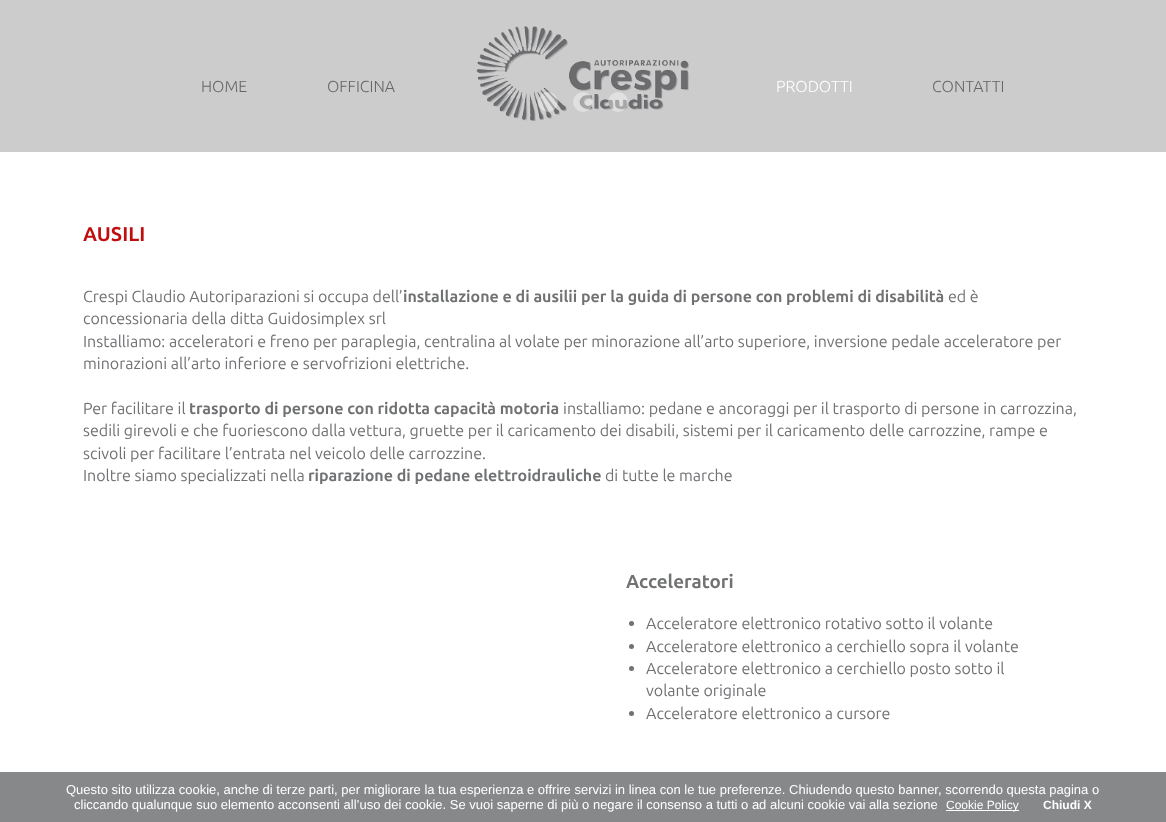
<?xml version="1.0" encoding="UTF-8"?>
<svg xmlns="http://www.w3.org/2000/svg" xmlns:xlink="http://www.w3.org/1999/xlink" width="1166" height="822">
  <rect width="100%" height="100%" fill="#ffffff" />
  <rect width="1166" height="152" fill="#cccccc" />
  <image x="476" y="26" width="213" height="95" xlink:href="image1.png" />
  <circle cx="548" cy="102" r="10" fill="#ffffff" fill-opacity="0.4" />
  <circle cx="583" cy="102" r="10" fill="#ffffff" fill-opacity="0.4" />
  <circle cx="618" cy="102" r="10" fill="#ffffff" fill-opacity="0.4" />
  <circle cx="631.5" cy="623.5" r="2.5" fill="#707173" />
  <circle cx="631.5" cy="646.5" r="2.5" fill="#707173" />
  <circle cx="631.5" cy="668.5" r="2.5" fill="#707173" />
  <circle cx="631.5" cy="713.5" r="2.5" fill="#707173" />
  <rect y="772" width="1166" height="50" fill="#87888a" />
  <rect x="946" y="810" width="73" height="1" fill="#ffffff" />
  <text x="201" y="92" style="font-family: Ubuntu; font-size: 16px; font-weight: 300; fill: #666666">HOME</text>
  <text x="327" y="92" style="font-family: Ubuntu; font-size: 16px; font-weight: 300; fill: #666666">OFFICINA</text>
  <text x="776" y="92" style="font-family: Ubuntu; font-size: 16px; font-weight: 300; fill: #ffffff">PRODOTTI</text>
  <text x="932" y="92" style="font-family: Ubuntu; font-size: 16px; font-weight: 300; fill: #666666">CONTATTI</text>
  <text x="83" y="241" style="font-family: Ubuntu; font-size: 20px; font-weight: bold; fill: #c00d0d">AUSILI</text>
  <text x="83" y="302" style="font-family: Ubuntu; font-size: 16px; fill: #707173">Crespi Claudio Autoriparazioni si occupa dell’</text>
  <text x="403" y="302" style="font-family: Ubuntu; font-size: 16px; font-weight: bold; fill: #707173">installazione e di ausilii per la guida di persone con problemi di disabilità</text>
  <text x="948" y="302" style="font-family: Ubuntu; font-size: 16px; fill: #707173">ed è</text>
  <text x="83" y="324" style="font-family: Ubuntu; font-size: 16px; fill: #707173">concessionaria della ditta Guidosimplex srl</text>
  <text x="83" y="347" style="font-family: Ubuntu; font-size: 16px; fill: #707173">Installiamo: acceleratori e freno per paraplegia, centralina al volate per minorazione all’arto superiore, inversione pedale acceleratore per</text>
  <text x="83" y="369" style="font-family: Ubuntu; font-size: 16px; fill: #707173">minorazioni all’arto inferiore e servofrizioni elettriche.</text>
  <text x="83" y="414" style="font-family: Ubuntu; font-size: 16px; fill: #707173">Per facilitare il</text>
  <text x="189" y="414" style="font-family: Ubuntu; font-size: 16px; font-weight: bold; fill: #707173">trasporto di persone con ridotta capacità motoria</text>
  <text x="563" y="414" style="font-family: Ubuntu; font-size: 16px; fill: #707173">installiamo: pedane e ancoraggi per il trasporto di persone in carrozzina,</text>
  <text x="83" y="436" style="font-family: Ubuntu; font-size: 16px; fill: #707173">sedili girevoli e che fuoriescono dalla vettura, gruette per il caricamento dei disabili, sistemi per il caricamento delle carrozzine, rampe e</text>
  <text x="83" y="459" style="font-family: Ubuntu; font-size: 16px; fill: #707173">scivoli per facilitare l’entrata nel veicolo delle carrozzine.</text>
  <text x="83" y="481" style="font-family: Ubuntu; font-size: 16px; fill: #707173">Inoltre siamo specializzati nella</text>
  <text x="308" y="481" style="font-family: Ubuntu; font-size: 16px; font-weight: bold; fill: #707173">riparazione di pedane elettroidrauliche</text>
  <text x="605" y="481" style="font-family: Ubuntu; font-size: 16px; fill: #707173">di tutte le marche</text>
  <text x="626" y="588" style="font-family: Ubuntu; font-size: 18.75px; font-weight: bold; fill: #707173">Acceleratori</text>
  <text x="646" y="629" style="font-family: Ubuntu; font-size: 16px; fill: #707173">Acceleratore elettronico rotativo sotto il volante</text>
  <text x="646" y="652" style="font-family: Ubuntu; font-size: 16px; fill: #707173">Acceleratore elettronico a cerchiello sopra il volante</text>
  <text x="646" y="674" style="font-family: Ubuntu; font-size: 16px; fill: #707173">Acceleratore elettronico a cerchiello posto sotto il</text>
  <text x="646" y="696" style="font-family: Ubuntu; font-size: 16px; fill: #707173">volante originale</text>
  <text x="646" y="719" style="font-family: Ubuntu; font-size: 16px; fill: #707173">Acceleratore elettronico a cursore</text>
  <text x="66" y="794" style="font-family: Liberation Sans; font-size: 13px; fill: #ffffff">Questo sito utilizza cookie, anche di terze parti, per migliorare la tua esperienza e offrire servizi in linea con le tue preferenze. Chiudendo questo banner, scorrendo questa pagina o</text>
  <text x="74" y="809" style="font-family: Liberation Sans; font-size: 13px; fill: #ffffff">cliccando qualunque suo elemento acconsenti all’uso dei cookie. Se vuoi saperne di più o negare il consenso a tutti o ad alcuni cookie vai alla sezione</text>
  <text x="946" y="809" style="font-family: Liberation Sans; font-size: 12px; fill: #ffffff">Cookie Policy</text>
  <text x="1043" y="809" style="font-family: Liberation Sans; font-size: 12px; font-weight: bold; fill: #ffffff">Chiudi X</text>
</svg>
